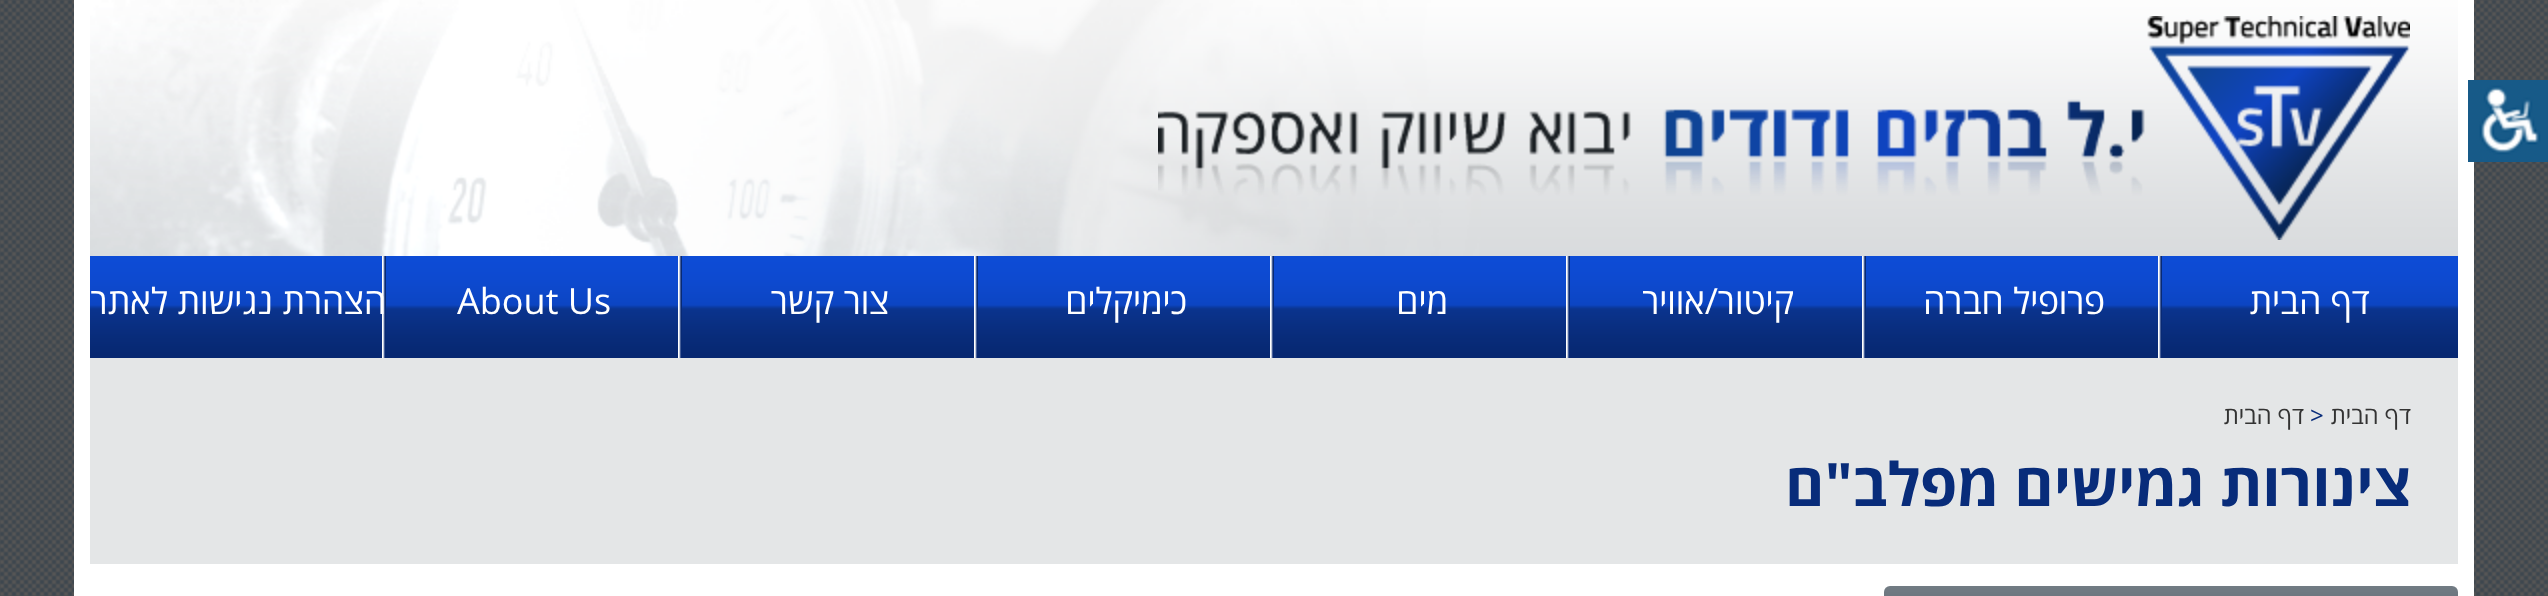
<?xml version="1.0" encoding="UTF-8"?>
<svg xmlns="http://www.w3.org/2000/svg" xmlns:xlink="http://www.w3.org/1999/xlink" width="2548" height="596">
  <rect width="100%" height="100%" fill="#ffffff" />
  <image x="0" y="0" width="2548" height="596" xlink:href="image1.png" />
  <rect x="74" width="2400" height="596" fill="#ffffff" />
  <image x="2468" y="80" width="80" height="82" xlink:href="image2.png" />
  <image x="90" y="0" width="2368" height="256" xlink:href="image3.png" />
  <image x="1158" y="16" width="1252" height="224" xlink:href="image4.png" />
  <image x="90" y="256" width="2368" height="102" xlink:href="image5.png" />
  <image x="2158" y="256" width="4" height="102" xlink:href="image6.png" />
  <image x="1862" y="256" width="4" height="102" xlink:href="image6.png" />
  <image x="1566" y="256" width="4" height="102" xlink:href="image6.png" />
  <image x="1270" y="256" width="4" height="102" xlink:href="image6.png" />
  <image x="974" y="256" width="4" height="102" xlink:href="image6.png" />
  <image x="678" y="256" width="4" height="102" xlink:href="image6.png" />
  <image x="382" y="256" width="4" height="102" xlink:href="image6.png" />
  <rect x="90" y="358" width="2368" height="206" fill="#e4e6e7" />
  <image x="1884" y="586" width="574" height="10" xlink:href="image7.png" />
  <text x="2370" y="314" style="font-family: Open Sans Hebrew; font-size: 36px; direction: rtl; fill: #ffffff">דף הבית</text>
  <text x="2105" y="314" style="font-family: Open Sans Hebrew; font-size: 36px; direction: rtl; fill: #ffffff">פרופיל חברה</text>
  <text x="1794" y="314" style="font-family: Open Sans Hebrew; font-size: 36px; direction: rtl; fill: #ffffff">קיטור/אוויר</text>
  <text x="1448" y="314" style="font-family: Open Sans Hebrew; font-size: 36px; direction: rtl; fill: #ffffff">מים</text>
  <text x="1187" y="314" style="font-family: Open Sans Hebrew; font-size: 36px; direction: rtl; fill: #ffffff">כימיקלים</text>
  <text x="889" y="314" style="font-family: Open Sans Hebrew; font-size: 36px; direction: rtl; fill: #ffffff">צור קשר</text>
  <text x="457" y="314" style="font-family: Open Sans Hebrew; font-size: 36px; fill: #ffffff">About Us</text>
  <text x="386" y="314" style="font-family: Open Sans Hebrew; font-size: 36px; direction: rtl; fill: #ffffff">הצהרת נגישות לאתר</text>
  <text x="2411" y="424" style="font-family: Open Sans Hebrew; font-size: 24px; direction: rtl; fill: #333333">דף הבית</text>
  <text x="2310" y="424" style="font-family: Open Sans Hebrew; font-size: 24px; fill: #082c7a">&gt;</text>
  <text x="2304" y="424" style="font-family: Open Sans Hebrew; font-size: 24px; direction: rtl; fill: #333333">דף הבית</text>
  <text x="2411" y="506" style="font-family: Open Sans Hebrew; font-size: 60px; font-weight: bold; direction: rtl; fill: #082c7a">צינורות גמישים מפלב"ם</text>
</svg>
